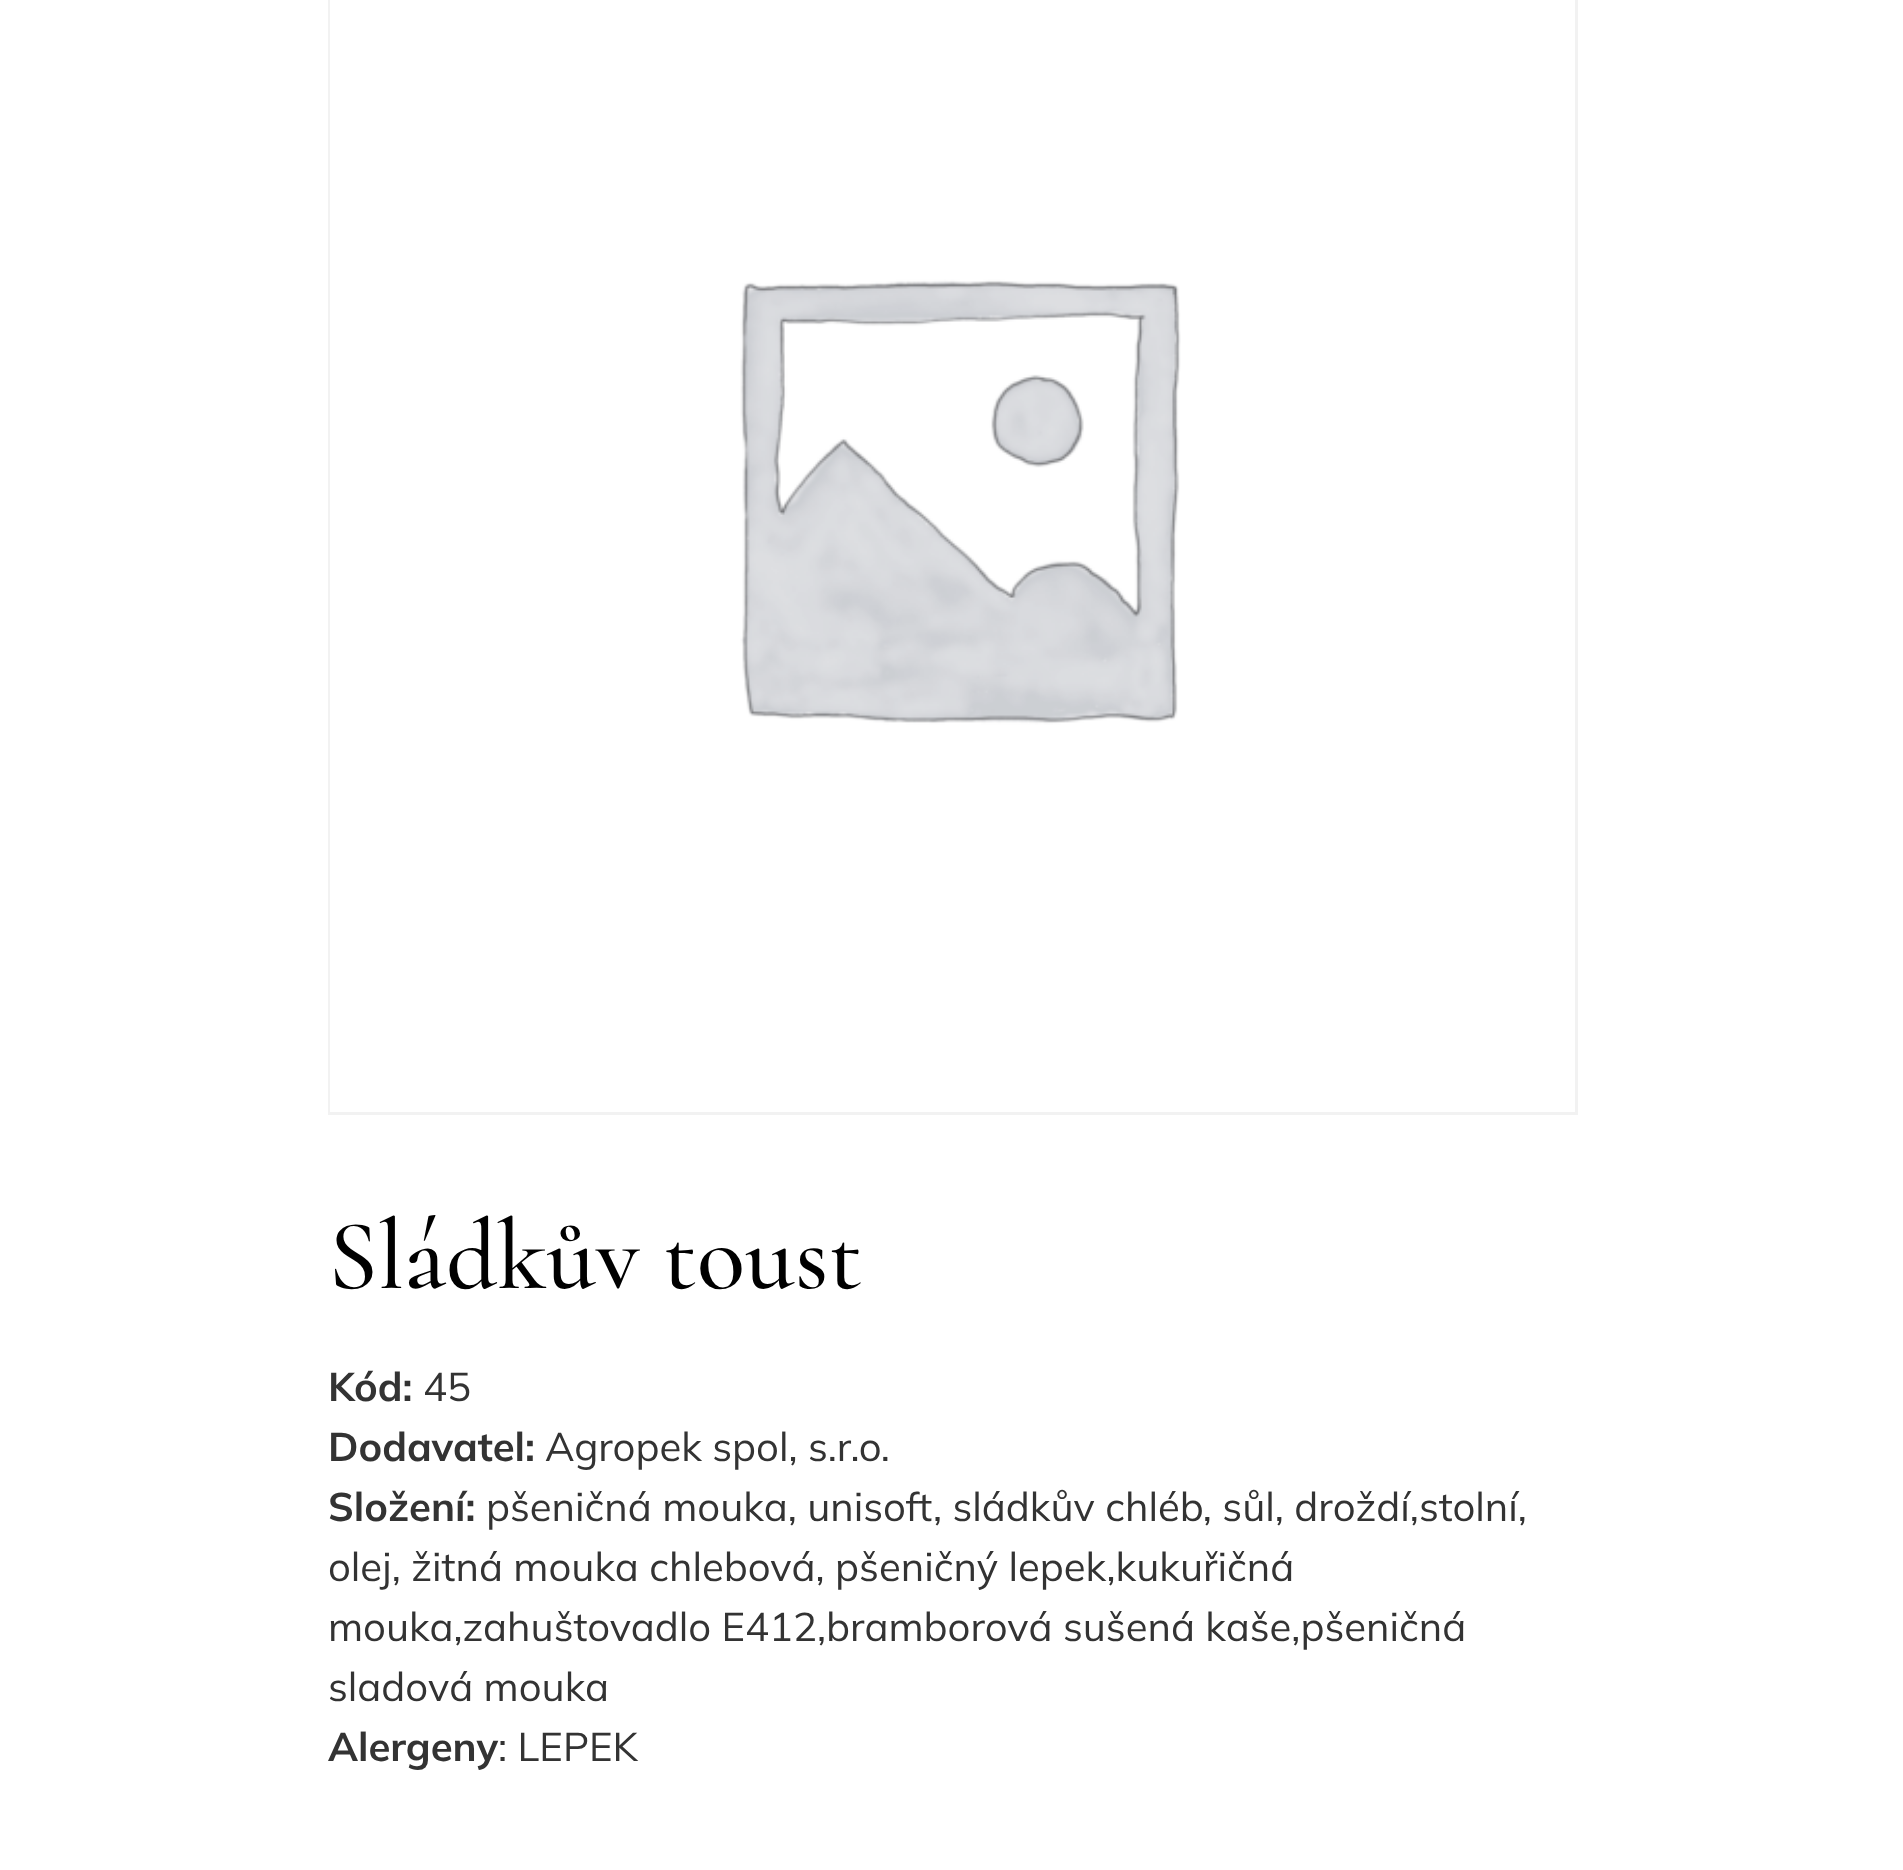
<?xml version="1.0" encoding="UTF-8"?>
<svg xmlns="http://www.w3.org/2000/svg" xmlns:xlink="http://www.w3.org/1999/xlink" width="1903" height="1870">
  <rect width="100%" height="100%" fill="#ffffff" />
  <rect x="329.5" y="-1.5" width="1247" height="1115" fill="none" stroke="#f2f2f2" stroke-width="3" />
  <image x="330" y="0" width="851" height="1112" xlink:href="image1.png" />
  <text x="328" y="1288" style="font-family: Cormorant; font-size: 100px; font-weight: 500; fill: #000000">Sládkův toust</text>
  <text x="328" y="1401" style="font-family: Mulish; font-size: 40px; font-weight: bold; fill: #333333">Kód:</text>
  <text x="423" y="1401" style="font-family: Mulish; font-size: 40px; fill: #333333">45</text>
  <text x="328" y="1461" style="font-family: Mulish; font-size: 40px; font-weight: bold; fill: #333333">Dodavatel:</text>
  <text x="545" y="1461" style="font-family: Mulish; font-size: 40px; fill: #333333">Agropek spol, s.r.o.</text>
  <text x="328" y="1521" style="font-family: Mulish; font-size: 40px; font-weight: bold; fill: #333333">Složení:</text>
  <text x="486" y="1521" style="font-family: Mulish; font-size: 40px; fill: #333333">pšeničná mouka, unisoft, sládkův chléb, sůl, droždí,stolní,</text>
  <text x="328" y="1581" style="font-family: Mulish; font-size: 40px; fill: #333333">olej, žitná mouka chlebová, pšeničný lepek,kukuřičná</text>
  <text x="328" y="1641" style="font-family: Mulish; font-size: 40px; fill: #333333">mouka,zahuštovadlo E412,bramborová sušená kaše,pšeničná</text>
  <text x="328" y="1701" style="font-family: Mulish; font-size: 40px; fill: #333333">sladová mouka</text>
  <text x="328" y="1761" style="font-family: Mulish; font-size: 40px; font-weight: bold; fill: #333333">Alergeny</text>
  <text x="498" y="1761" style="font-family: Mulish; font-size: 40px; fill: #333333">: LEPEK</text>
</svg>
